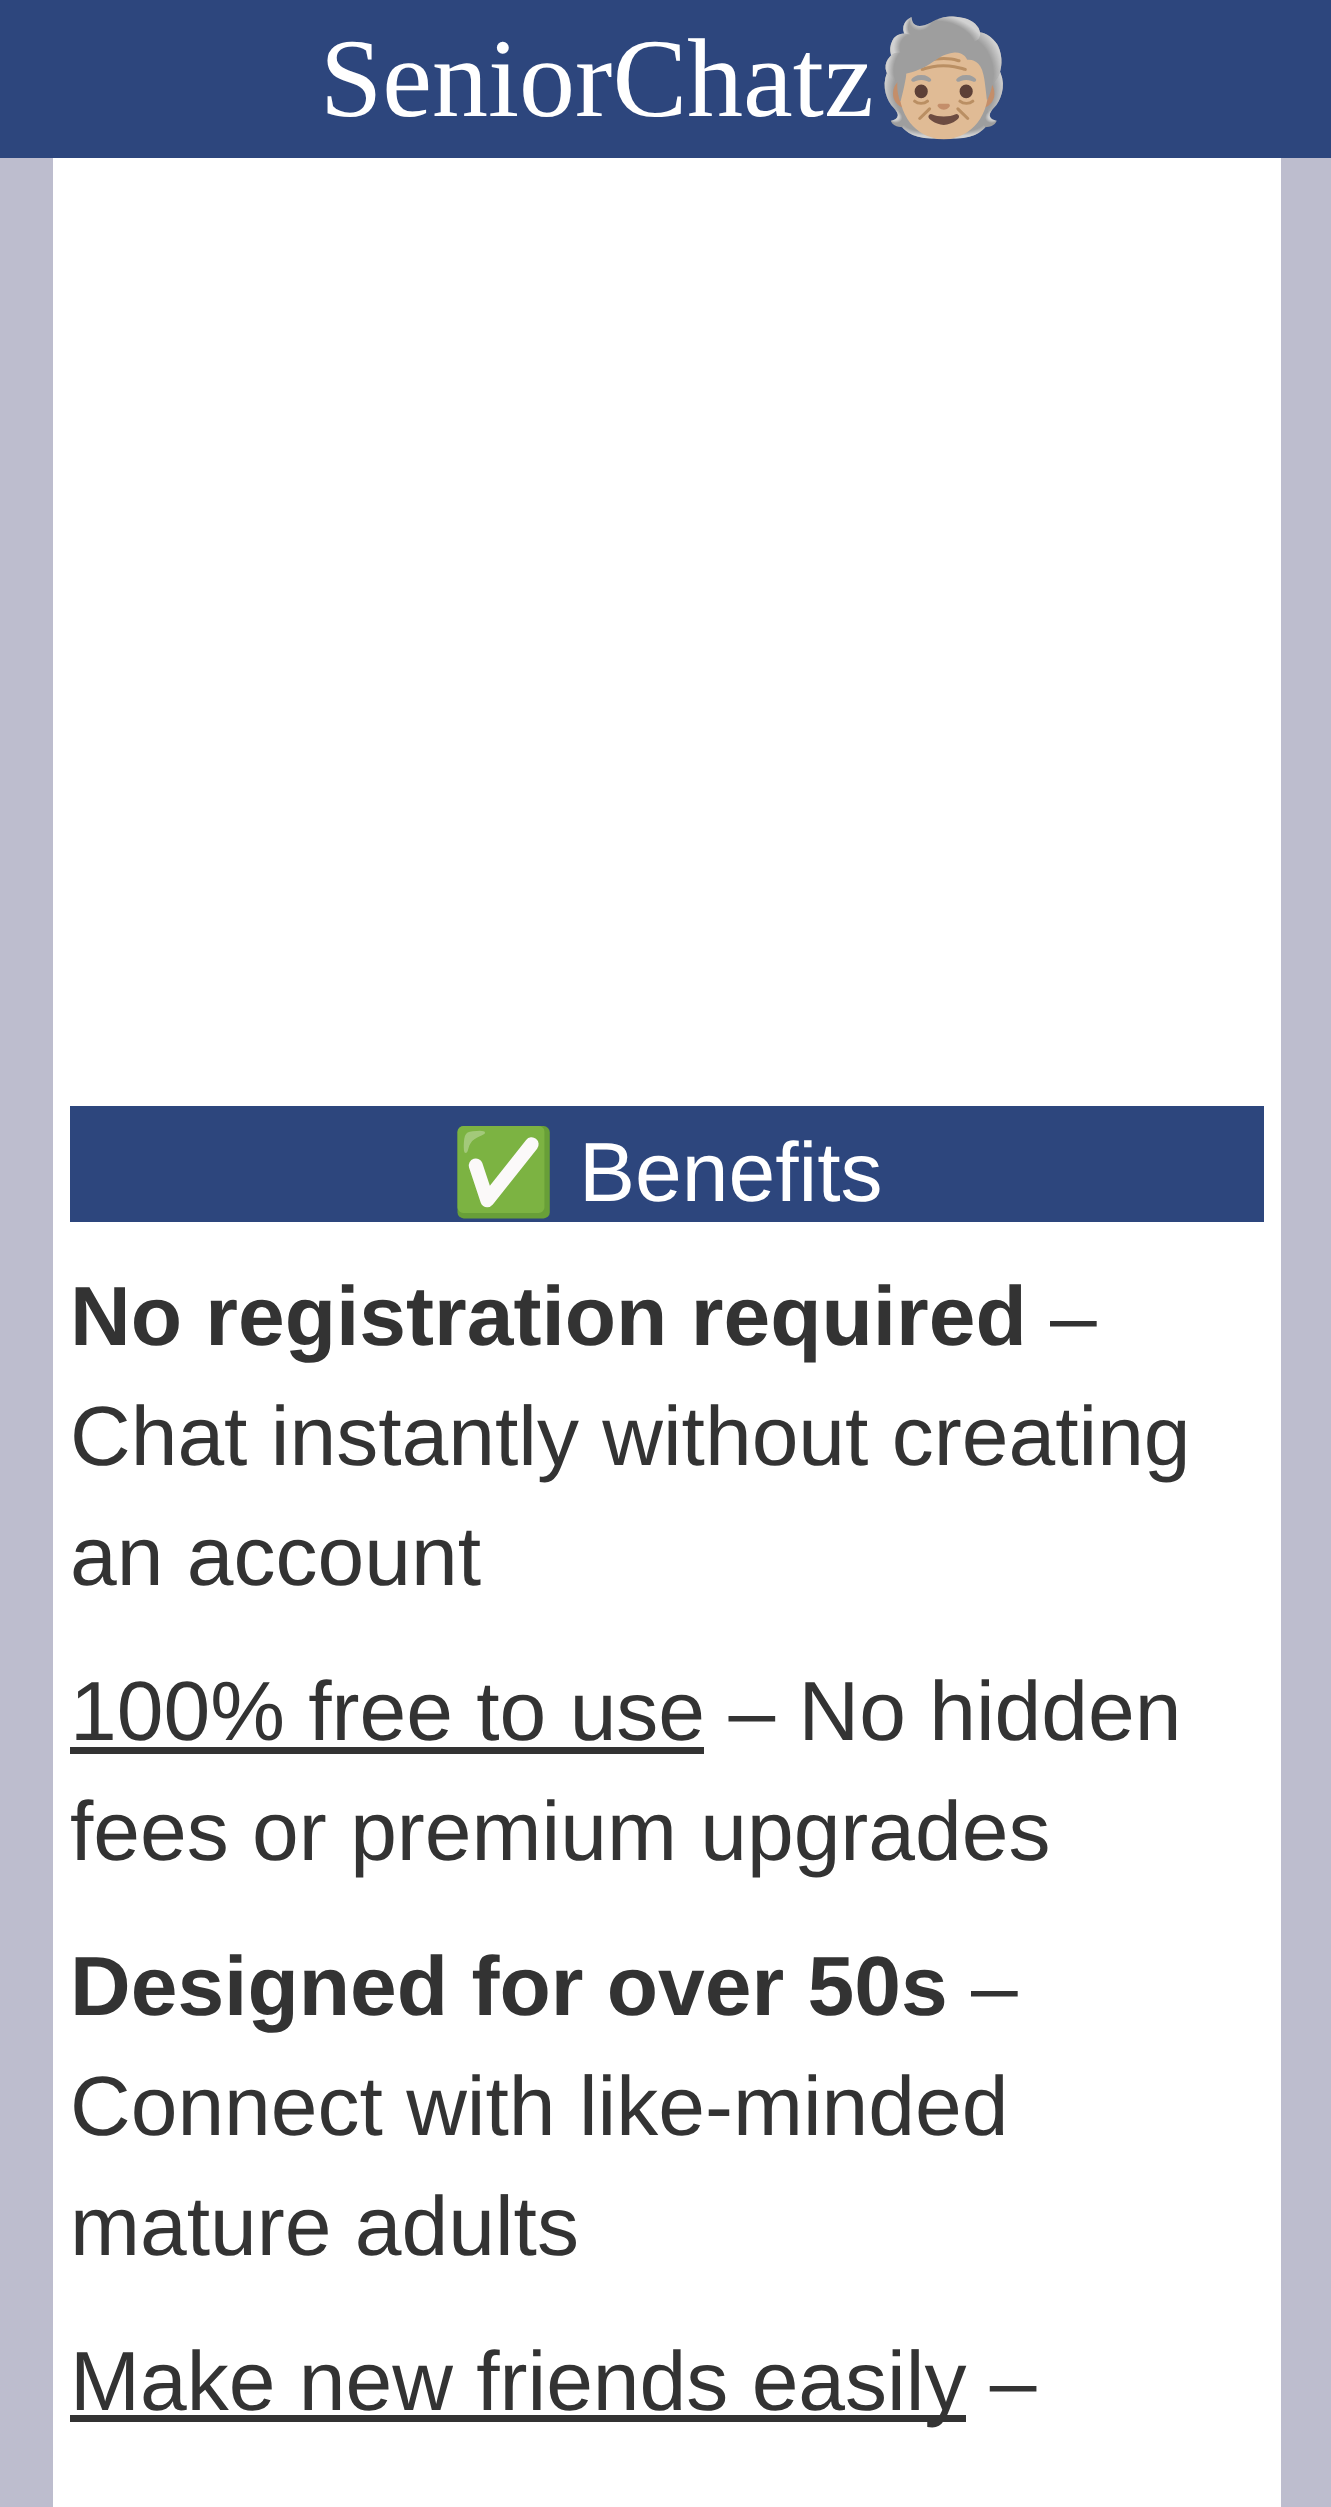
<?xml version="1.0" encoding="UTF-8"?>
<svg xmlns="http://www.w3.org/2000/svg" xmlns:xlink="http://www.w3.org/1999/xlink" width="1331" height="2507">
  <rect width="100%" height="100%" fill="#bdbdce" />
  <rect width="1331" height="158" fill="#2d467d" />
  <rect x="53" y="158" width="1228" height="2349" fill="#ffffff" />
  <rect x="70" y="1106" width="1194" height="116" fill="#2d467d" />
  <rect x="70" y="1747" width="634" height="7" fill="#333333" />
  <rect x="70" y="2415" width="896" height="7" fill="#333333" />
  <text x="320" y="116" style="font-family: Liberation Serif; font-size: 112px; fill: #ffffff">SeniorChatz</text>
  <text x="874" y="116" style="font-family: Noto Color Emoji; font-size: 112px; fill: #ffffff">🧓🏼</text>
  <text x="451" y="1201" style="font-family: Noto Color Emoji; font-size: 84px; fill: #ffffff">✅</text>
  <text x="579" y="1201" style="font-family: Liberation Sans; font-size: 84px; fill: #ffffff">Benefits</text>
  <text x="70" y="1345" style="font-family: Liberation Sans; font-size: 84px; font-weight: bold; fill: #333333">No registration required</text>
  <text x="1050" y="1345" style="font-family: Liberation Sans; font-size: 84px; fill: #333333">–</text>
  <text x="70" y="1465" style="font-family: Liberation Sans; font-size: 84px; fill: #333333">Chat instantly without creating</text>
  <text x="70" y="1585" style="font-family: Liberation Sans; font-size: 84px; fill: #333333">an account</text>
  <text x="70" y="1740" style="font-family: Liberation Sans; font-size: 84px; fill: #333333">100% free to use – No hidden</text>
  <text x="70" y="1860" style="font-family: Liberation Sans; font-size: 84px; fill: #333333">fees or premium upgrades</text>
  <text x="70" y="2015" style="font-family: Liberation Sans; font-size: 84px; font-weight: bold; fill: #333333">Designed for over 50s</text>
  <text x="971" y="2015" style="font-family: Liberation Sans; font-size: 84px; fill: #333333">–</text>
  <text x="70" y="2135" style="font-family: Liberation Sans; font-size: 84px; fill: #333333">Connect with like-minded</text>
  <text x="70" y="2255" style="font-family: Liberation Sans; font-size: 84px; fill: #333333">mature adults</text>
  <text x="70" y="2410" style="font-family: Liberation Sans; font-size: 84px; fill: #333333">Make new friends easily –</text>
</svg>
